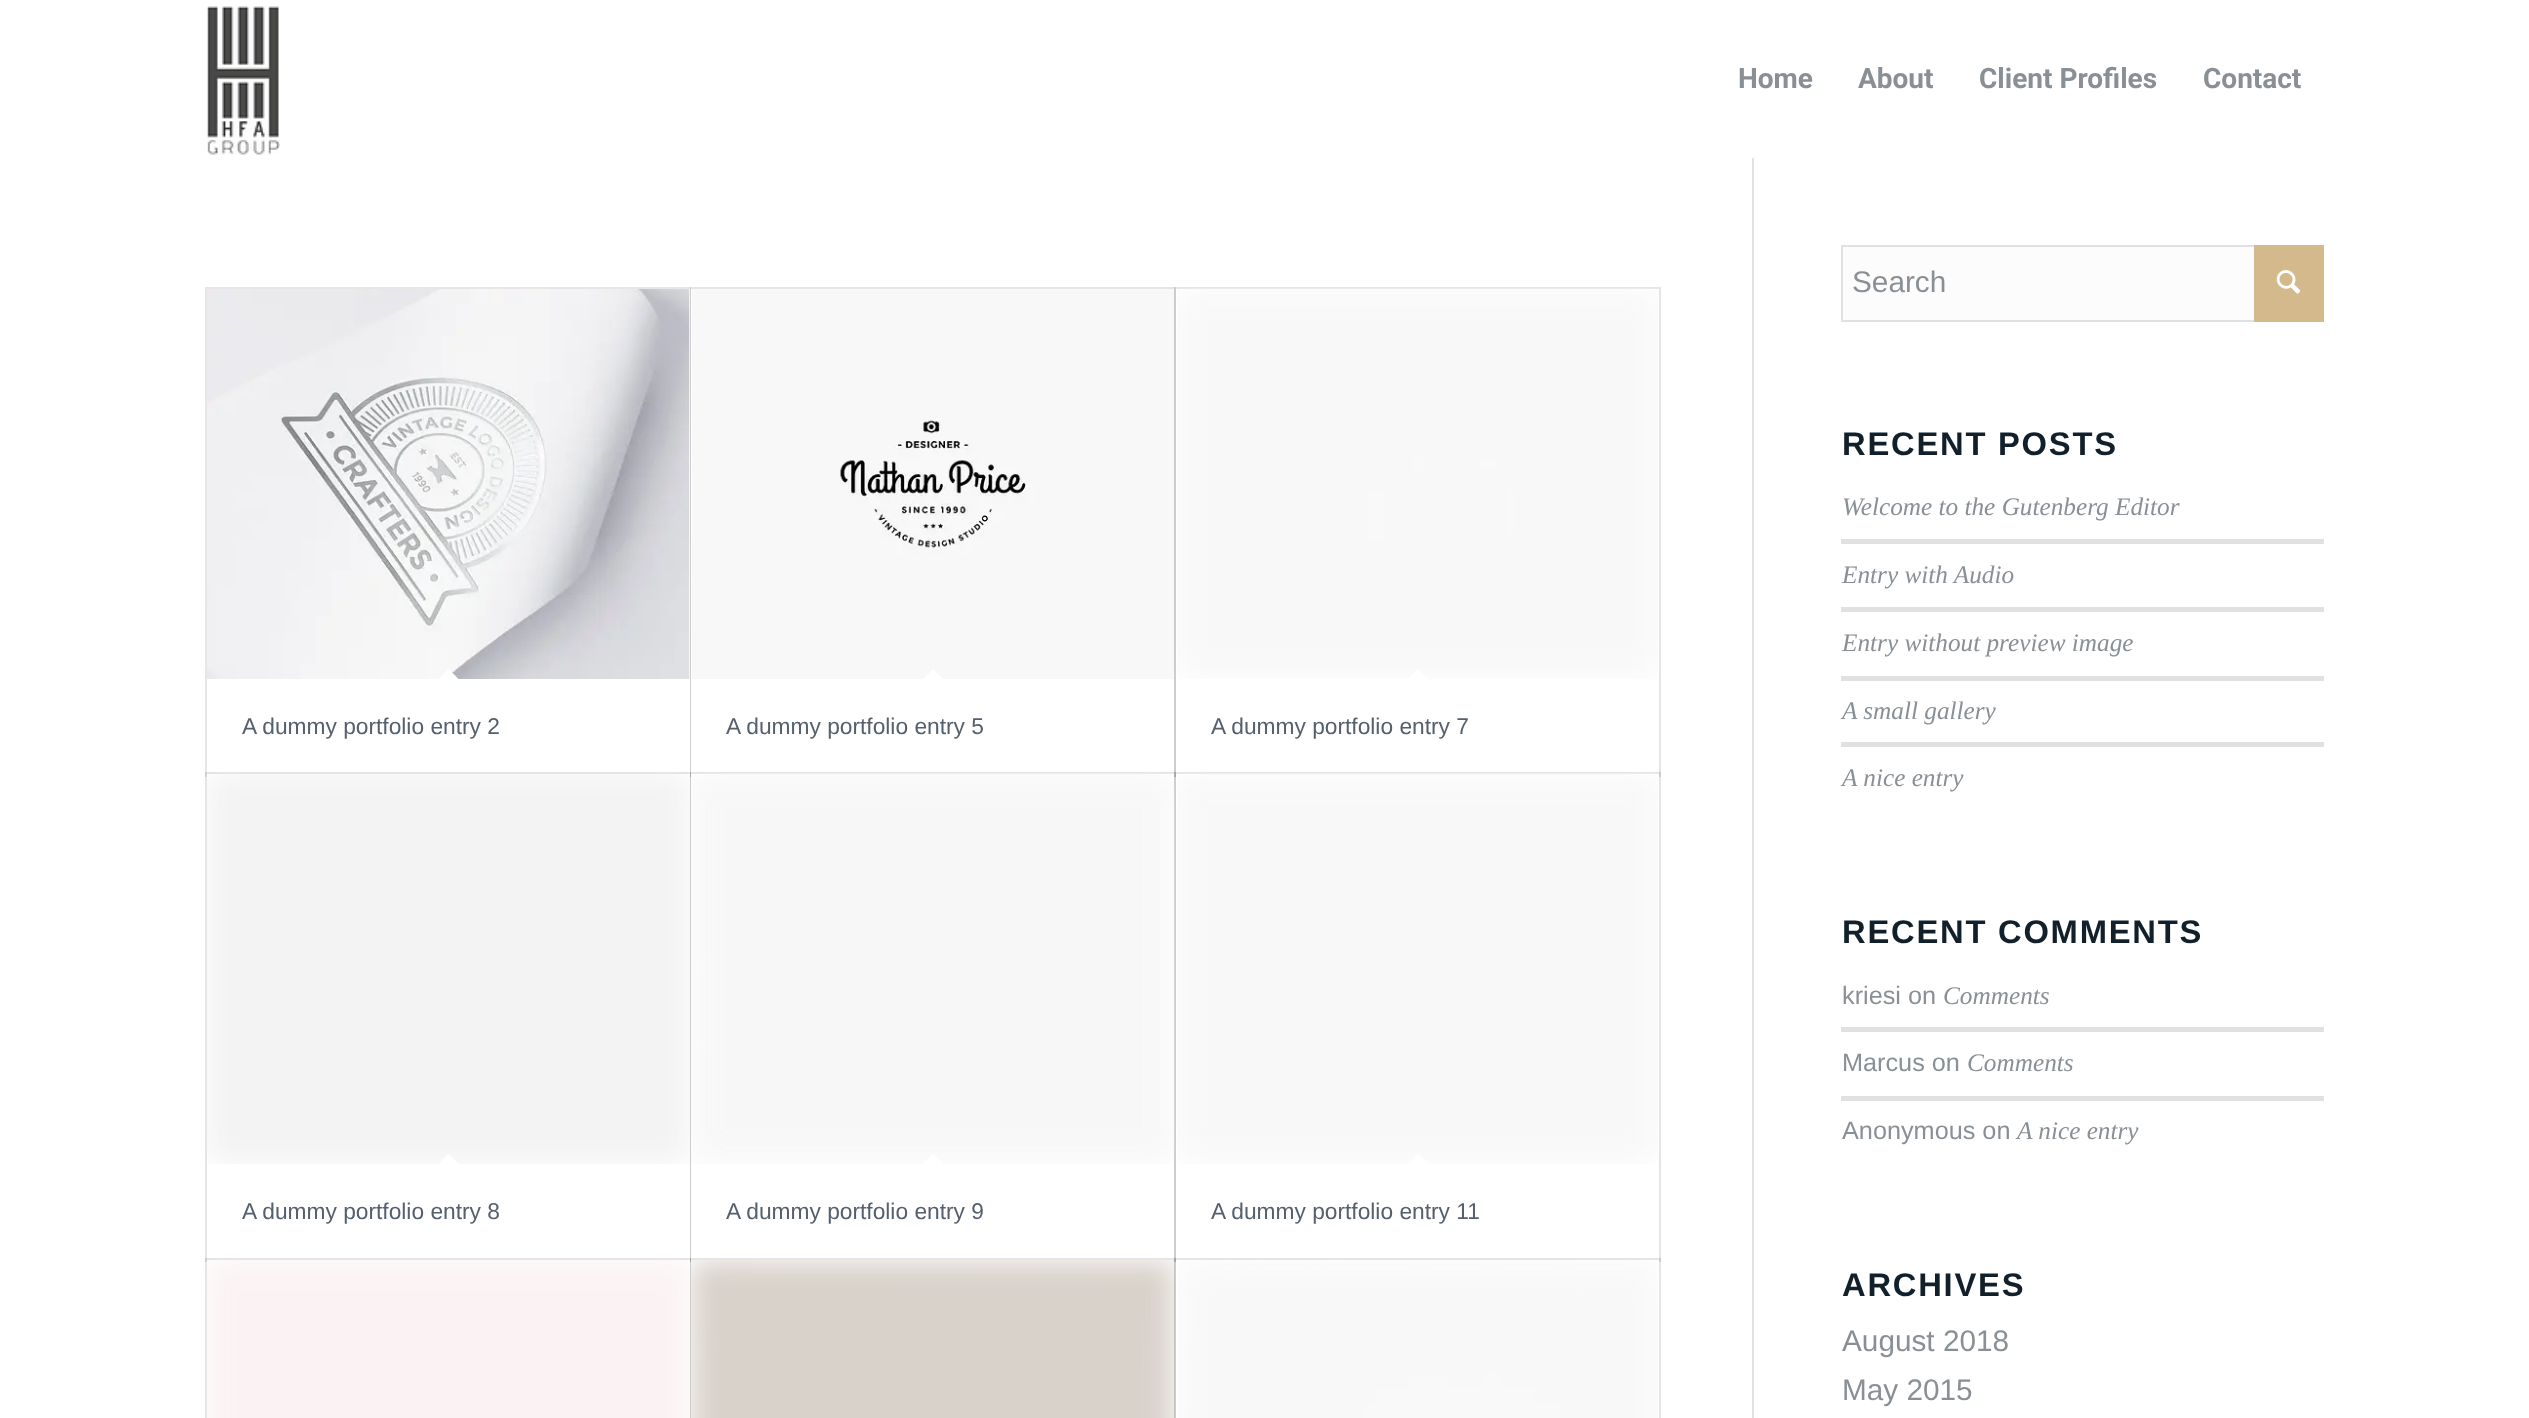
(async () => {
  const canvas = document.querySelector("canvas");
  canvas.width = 2529;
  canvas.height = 1418;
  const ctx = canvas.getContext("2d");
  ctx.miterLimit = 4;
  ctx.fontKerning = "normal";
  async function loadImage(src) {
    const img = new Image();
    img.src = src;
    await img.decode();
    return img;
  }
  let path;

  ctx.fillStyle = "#ffffff";
  ctx.fillRect(0, 0, 2529, 1418);
  ctx.drawImage(await loadImage("img/1.png"), 206, 6, 74, 149);
  ctx.fillStyle = "#e1e1e1";
  ctx.fillRect(1752, 158, 2, 1260);
  ctx.strokeStyle = "#e6e6e6";
  ctx.lineWidth = 2;
  ctx.strokeRect(206, 288, 484, 488);
  ctx.fillStyle = "#ffffff";
  ctx.fillRect(689, 289, 1, 485);
  ctx.drawImage(await loadImage("img/2.png"), 207, 289, 483, 390);
  path = new Path2D("M448.5 669L461 681.5L448.5 694L436 681.5Z");
  ctx.fill(path);
  ctx.strokeStyle = "rgba(0, 0, 0, 0.1)";
  ctx.strokeRect(691, 288, 484, 488);
  ctx.fillRect(691, 289, 1, 485);
  ctx.drawImage(await loadImage("img/3.png"), 692, 289, 482, 390);
  path = new Path2D("M933 669L945.5 681.5L933 694L921 681.5Z");
  ctx.fill(path);
  ctx.strokeRect(1175, 288, 485, 488);
  ctx.drawImage(await loadImage("img/4.png"), 1177, 288, 481, 391);
  path = new Path2D("M1418 669L1430.5 681.5L1418 694L1405.5 681.5Z");
  ctx.fill(path);
  ctx.strokeRect(206, 773, 484, 488);
  ctx.fillRect(207, 774, 483, 486);
  ctx.drawImage(await loadImage("img/5.png"), 206, 774, 484, 390);
  path = new Path2D("M448.5 1154L461 1166L448.5 1178.5L436 1166Z");
  ctx.fill(path);
  ctx.strokeRect(691, 773, 484, 488);
  ctx.fillRect(691, 774, 483, 486);
  ctx.drawImage(await loadImage("img/6.png"), 691, 773, 484, 391);
  path = new Path2D("M933 1154L945.5 1166L933 1178.5L921 1166Z");
  ctx.fill(path);
  ctx.strokeRect(1175, 773, 485, 488);
  ctx.fillRect(1176, 775, 483, 2);
  ctx.drawImage(await loadImage("img/7.png"), 1177, 773, 481, 391);
  path = new Path2D("M1418 1154L1430.5 1166L1418 1178.5L1405.5 1166Z");
  ctx.fill(path);
  ctx.strokeRect(206, 1259, 484, 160);
  ctx.fillRect(207, 1260, 483, 158);
  ctx.drawImage(await loadImage("img/8.png"), 206, 1260, 484, 158);
  ctx.strokeRect(691, 1259, 484, 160);
  ctx.fillRect(691, 1260, 483, 158);
  ctx.drawImage(await loadImage("img/9.png"), 691, 1260, 484, 158);
  ctx.strokeRect(1175, 1259, 485, 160);
  ctx.fillRect(1176, 1260, 483, 2);
  ctx.drawImage(await loadImage("img/10.png"), 1178, 1260, 480, 158);
  ctx.fillStyle = "#fcfcfc";
  ctx.fillRect(1843, 247, 411, 73);
  ctx.strokeStyle = "#e1e1e1";
  ctx.strokeRect(1842, 246, 481, 75);
  ctx.fillStyle = "#d4b98c";
  ctx.fillRect(2254, 245, 70, 77);
  ctx.drawImage(await loadImage("img/11.png"), 2276, 270, 25, 24);
  for (const [x, y, w, h, color] of [
    [1841, 539, 483, 5, "#e1e1e1"],
    [1841, 607, 483, 5, "#e1e1e1"],
    [1841, 676, 483, 5, "#e1e1e1"],
    [1841, 742, 483, 5, "#e1e1e1"],
    [1841, 1027, 483, 5, "#e1e1e1"],
    [1841, 1096, 483, 5, "#e1e1e1"],
  ]) {
    ctx.fillStyle = color;
    ctx.fillRect(x, y, w, h);
  }
  ctx.font = "bold 28px Roboto";
  ctx.fillStyle = "#889095";
  for (const [text, x, y] of [
    ["Home", 1738, 88],
    ["About", 1858, 88],
    ["Client Profiles", 1979, 88],
    ["Contact", 2203, 88],
  ]) {
    ctx.fillText(text, x, y);
  }
  ctx.font = "22.75px Liberation Sans";
  ctx.fillStyle = "#55606e";
  for (const [text, x, y] of [
    ["A dummy portfolio entry 2", 242, 734],
    ["A dummy portfolio entry 5", 726, 734],
    ["A dummy portfolio entry 7", 1211, 734],
    ["A dummy portfolio entry 8", 242, 1219],
    ["A dummy portfolio entry 9", 726, 1219],
    ["A dummy portfolio entry 11", 1211, 1219],
  ]) {
    ctx.fillText(text, x, y);
  }
  ctx.font = "29.75px Liberation Sans";
  ctx.fillStyle = "#889095";
  ctx.fillText("Search", 1852, 292);
  ctx.letterSpacing = "1.75px";
  ctx.font = "bold 32.75px Liberation Sans";
  ctx.fillStyle = "#11202a";
  ctx.fillText("RECENT POSTS", 1842, 455);
  ctx.letterSpacing = "0px";
  ctx.font = "italic 25.25px Liberation Serif";
  ctx.fillStyle = "#889095";
  for (const [text, x, y] of [
    ["Welcome to the Gutenberg Editor", 1842, 515],
    ["Entry with Audio", 1842, 583],
    ["Entry without preview image", 1842, 651],
    ["A small gallery", 1842, 719],
    ["A nice entry", 1842, 786],
  ]) {
    ctx.fillText(text, x, y);
  }
  ctx.letterSpacing = "1.75px";
  ctx.font = "bold 32.75px Liberation Sans";
  ctx.fillStyle = "#11202a";
  ctx.fillText("RECENT COMMENTS", 1842, 943);
  ctx.letterSpacing = "0px";
  ctx.font = "25.25px Liberation Sans";
  ctx.fillStyle = "#889095";
  ctx.fillText("kriesi on", 1842, 1004);
  ctx.font = "italic 25.25px Liberation Serif";
  ctx.fillText("Comments", 1943, 1004);
  ctx.font = "25.25px Liberation Sans";
  ctx.fillText("Marcus on", 1842, 1071);
  ctx.font = "italic 25.25px Liberation Serif";
  ctx.fillText("Comments", 1967, 1071);
  ctx.font = "25.25px Liberation Sans";
  ctx.fillText("Anonymous on", 1842, 1139);
  ctx.font = "italic 25.25px Liberation Serif";
  ctx.fillText("A nice entry", 2017, 1139);
  ctx.letterSpacing = "1.75px";
  ctx.font = "bold 32.75px Liberation Sans";
  ctx.fillStyle = "#11202a";
  ctx.fillText("ARCHIVES", 1842, 1296);
  ctx.letterSpacing = "0px";
  ctx.font = "29.75px Liberation Sans";
  ctx.fillStyle = "#889095";
  ctx.fillText("August 2018", 1842, 1351);
  ctx.fillText("May 2015", 1842, 1400);
})();
